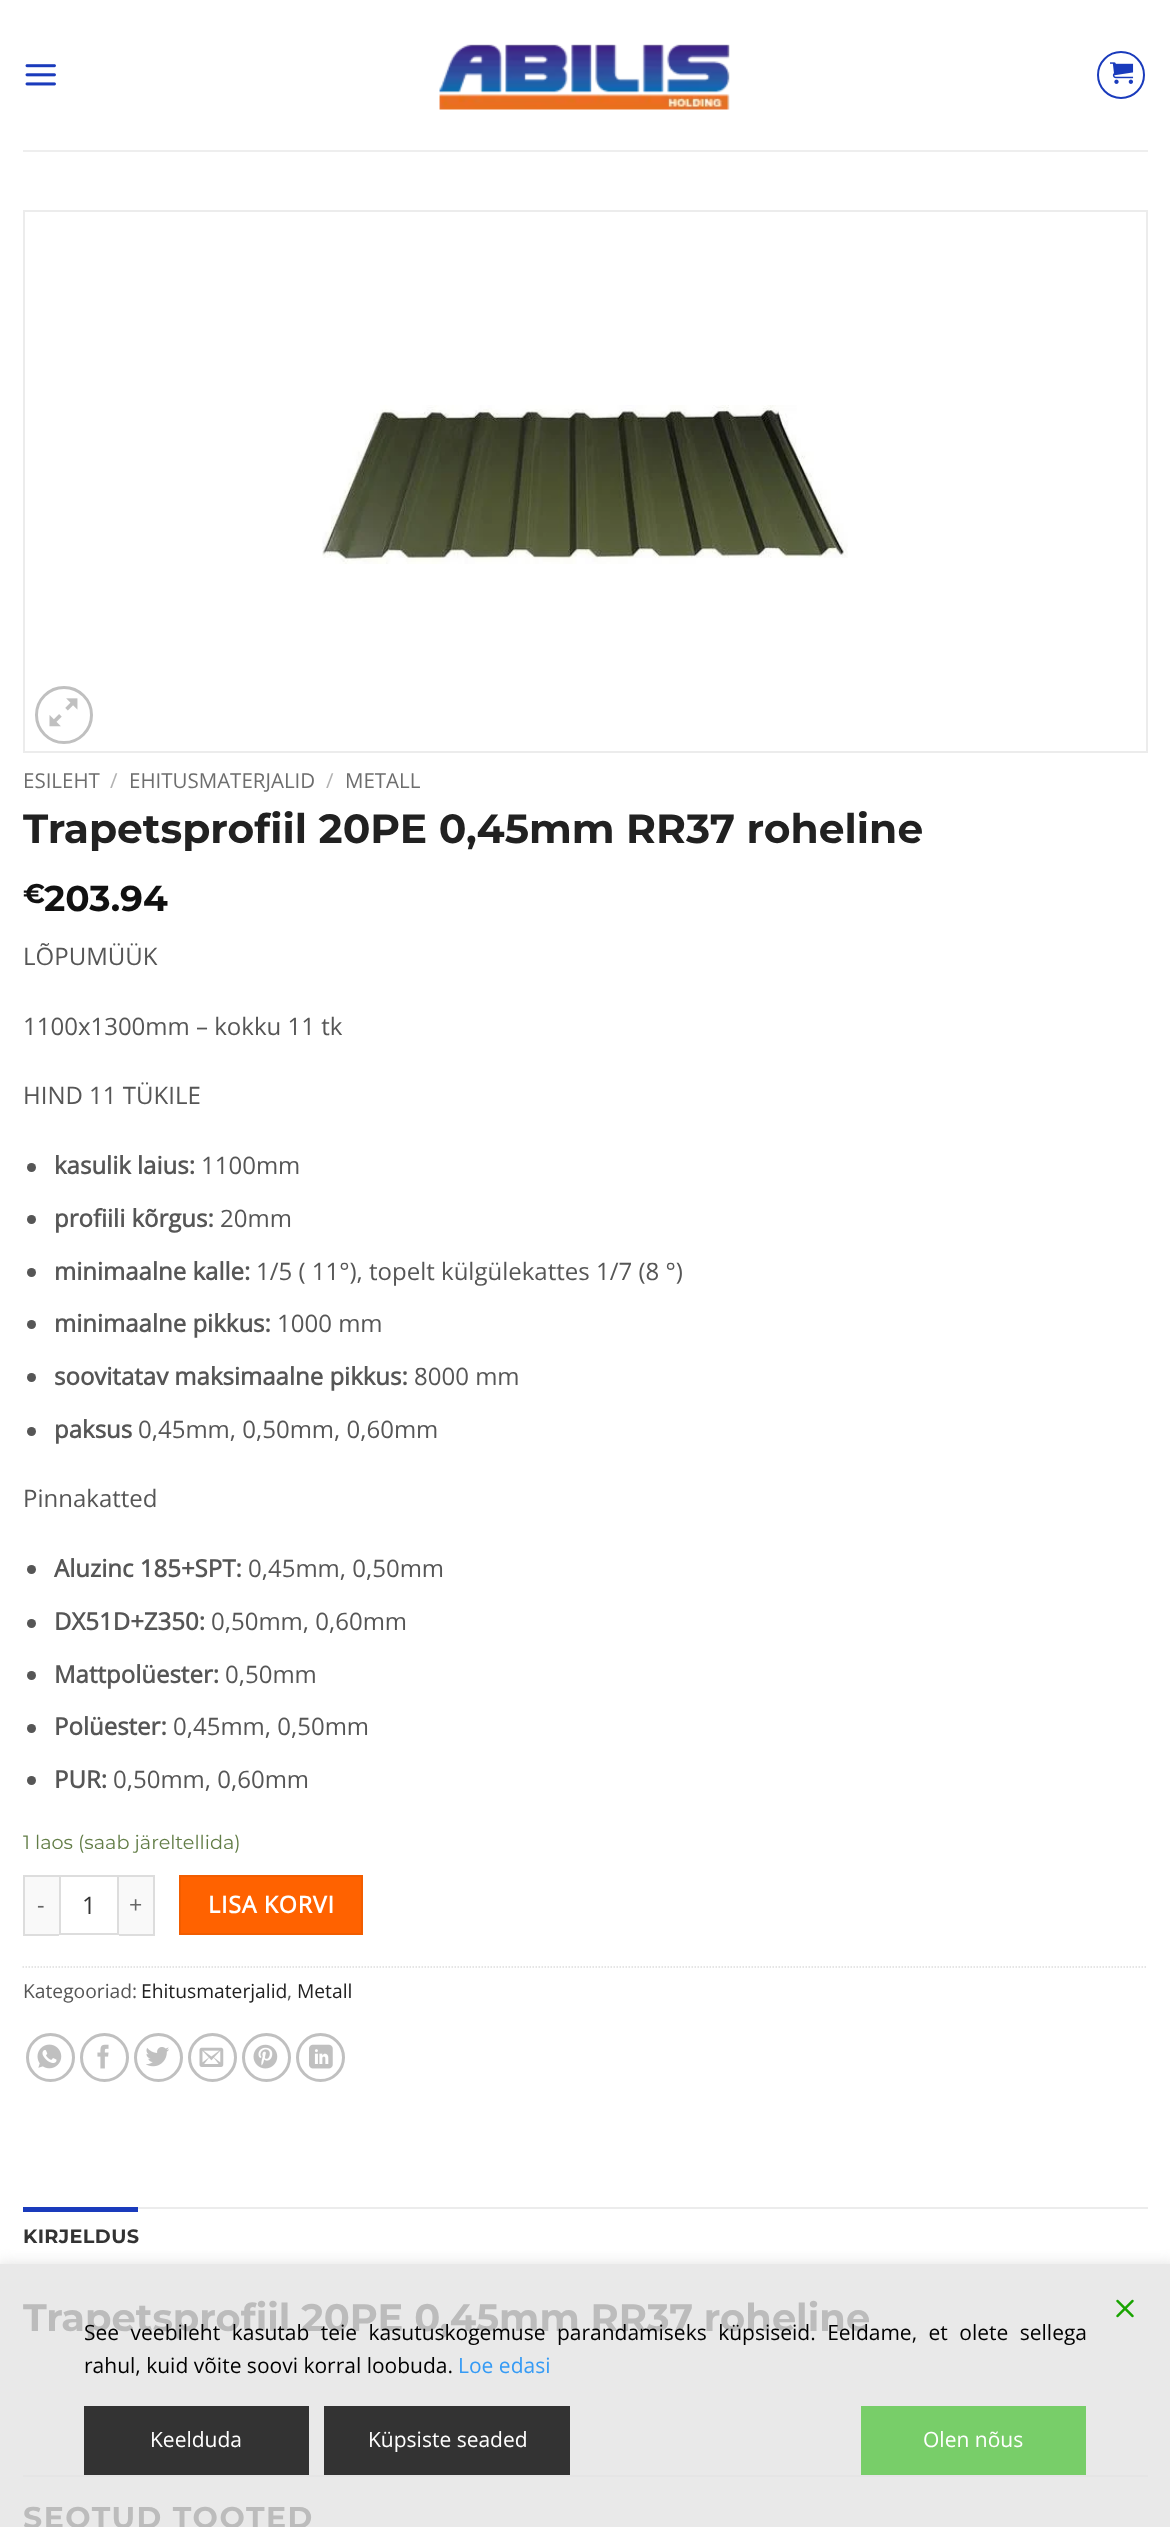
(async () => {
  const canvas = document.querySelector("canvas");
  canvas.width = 1170;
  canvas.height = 2527;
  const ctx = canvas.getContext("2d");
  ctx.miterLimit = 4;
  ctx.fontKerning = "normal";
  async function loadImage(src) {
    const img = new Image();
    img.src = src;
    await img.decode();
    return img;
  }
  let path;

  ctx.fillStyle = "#ffffff";
  ctx.fillRect(0, 0, 1170, 2527);
  ctx.fillStyle = "#e9e9e9";
  ctx.fillRect(0, 2264, 1170, 263);
  ctx.drawImage(await loadImage("img/1.png"), 25, 64, 31, 22);
  ctx.drawImage(await loadImage("img/2.png"), 439, 44, 291, 66);
  ctx.beginPath();
  ctx.arc(1121, 75, 23, 0, Math.PI * 2);
  ctx.strokeStyle = "#1a3bbc";
  ctx.lineWidth = 2;
  ctx.stroke();
  ctx.drawImage(await loadImage("img/3.png"), 1110, 62, 24, 22);
  ctx.fillStyle = "#eeeeee";
  ctx.fillRect(23, 150, 1125, 2);
  ctx.strokeStyle = "#ececec";
  ctx.strokeRect(24, 211, 1123, 541);
  ctx.drawImage(await loadImage("img/4.png"), 322, 405, 526, 159);
  ctx.beginPath();
  ctx.arc(64, 715, 27.5, 0, Math.PI * 2);
  ctx.strokeStyle = "#c0c0c0";
  ctx.lineWidth = 3;
  ctx.stroke();
  ctx.drawImage(await loadImage("img/5.png"), 49, 698, 29, 29);
  ctx.fillStyle = "#565656";
  ctx.beginPath();
  ctx.arc(31.5, 1167.5, 4.5, 0, Math.PI * 2);
  ctx.fill();
  ctx.beginPath();
  ctx.arc(31.5, 1219.5, 4.5, 0, Math.PI * 2);
  ctx.fill();
  ctx.beginPath();
  ctx.arc(31.5, 1272.5, 4.5, 0, Math.PI * 2);
  ctx.fill();
  ctx.beginPath();
  ctx.arc(31.5, 1324.5, 4.5, 0, Math.PI * 2);
  ctx.fill();
  ctx.beginPath();
  ctx.arc(31.5, 1377.5, 4.5, 0, Math.PI * 2);
  ctx.fill();
  ctx.beginPath();
  ctx.arc(31.5, 1431.5, 4.5, 0, Math.PI * 2);
  ctx.fill();
  ctx.beginPath();
  ctx.arc(31.5, 1569.5, 4.5, 0, Math.PI * 2);
  ctx.fill();
  ctx.beginPath();
  ctx.arc(31.5, 1623.5, 4.5, 0, Math.PI * 2);
  ctx.fill();
  ctx.beginPath();
  ctx.arc(31.5, 1675.5, 4.5, 0, Math.PI * 2);
  ctx.fill();
  ctx.beginPath();
  ctx.arc(31.5, 1728.5, 4.5, 0, Math.PI * 2);
  ctx.fill();
  ctx.beginPath();
  ctx.arc(31.5, 1780.5, 4.5, 0, Math.PI * 2);
  ctx.fill();
  for (const [x, y, w, h, color] of [
    [25, 1877, 34, 57, "#f9f9f9"],
    [23, 1875, 36, 2, "#dddddd"],
    [23, 1934, 36, 2, "#dddddd"],
    [23, 1875, 2, 60, "#dddddd"],
  ]) {
    ctx.fillStyle = color;
    ctx.fillRect(x, y, w, h);
  }
  ctx.strokeStyle = "#dddddd";
  ctx.lineWidth = 2;
  ctx.strokeRect(60, 1876, 58, 58);
  for (const [x, y, w, h, color] of [
    [119, 1877, 34, 57, "#f9f9f9"],
    [119, 1875, 36, 2, "#dddddd"],
    [153, 1875, 2, 60, "#dddddd"],
    [119, 1934, 36, 2, "#dddddd"],
  ]) {
    ctx.fillStyle = color;
    ctx.fillRect(x, y, w, h);
  }
  ctx.fillStyle = "#ff6200";
  ctx.beginPath();
  ctx.rect(180, 1876, 182, 58);
  ctx.fill();
  ctx.strokeStyle = "#f25d00";
  ctx.stroke();
  path = new Path2D("M22.5 1967H1147.5");
  ctx.strokeStyle = "#dddddd";
  ctx.lineWidth = 1.5;
  ctx.setLineDash([1.5, 1.5]);
  ctx.stroke(path);
  ctx.beginPath();
  ctx.arc(50.5, 2057.5, 23, 0, Math.PI * 2);
  ctx.strokeStyle = "#c0c0c0";
  ctx.lineWidth = 3;
  ctx.setLineDash([]);
  ctx.stroke();
  ctx.drawImage(await loadImage("img/6.png"), 37, 2044, 25, 25);
  ctx.beginPath();
  ctx.arc(104.5, 2057.5, 23, 0, Math.PI * 2);
  ctx.stroke();
  ctx.drawImage(await loadImage("img/7.png"), 97, 2044, 12, 25);
  ctx.beginPath();
  ctx.arc(158.5, 2057.5, 23, 0, Math.PI * 2);
  ctx.stroke();
  ctx.drawImage(await loadImage("img/8.png"), 146, 2047, 23, 20);
  ctx.beginPath();
  ctx.arc(212.5, 2057.5, 23, 0, Math.PI * 2);
  ctx.stroke();
  ctx.drawImage(await loadImage("img/9.png"), 199, 2047, 25, 20);
  ctx.beginPath();
  ctx.arc(266.5, 2057.5, 23, 0, Math.PI * 2);
  ctx.stroke();
  ctx.drawImage(await loadImage("img/10.png"), 253, 2044, 25, 25);
  ctx.beginPath();
  ctx.arc(320.5, 2057.5, 23, 0, Math.PI * 2);
  ctx.stroke();
  ctx.drawImage(await loadImage("img/11.png"), 309, 2044, 24, 25);
  for (const [x, y, w, h, color] of [
    [138, 2207, 1010, 2, "#ececec"],
    [23, 2207, 115, 5, "#1a3bbc"],
    [23, 2475, 1125, 2, "#e5e5e5"],
  ]) {
    ctx.fillStyle = color;
    ctx.fillRect(x, y, w, h);
  }
  ctx.save();
  ctx.beginPath();
  ctx.rect(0, 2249, 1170, 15);
  ctx.clip();
  ctx.fillStyle = "#dddddd";
  ctx.filter = "blur(8px)";
  ctx.beginPath();
  ctx.rect(-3, 2265, 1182, 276);
  ctx.fill();
  ctx.filter = "none";
  ctx.restore();
  ctx.drawImage(await loadImage("img/12.png"), 1116, 2299, 18, 19);
  for (const [x, y, w, h, color] of [
    [84, 2406, 225, 69, "#333333"],
    [324, 2406, 246, 69, "#333333"],
    [861, 2406, 225, 69, "#78ce69"],
  ]) {
    ctx.fillStyle = color;
    ctx.fillRect(x, y, w, h);
  }
  ctx.font = "20.5px Open Sans";
  ctx.fillStyle = "#6e6e6e";
  ctx.fillText("ESILEHT", 23, 788);
  ctx.fillStyle = "#b2b2b2";
  ctx.fillText("/", 110, 788);
  ctx.fillStyle = "#6e6e6e";
  ctx.fillText("EHITUSMATERJALID", 129, 788);
  ctx.fillStyle = "#b2b2b2";
  ctx.fillText("/", 326, 788);
  ctx.fillStyle = "#6e6e6e";
  ctx.fillText("METALL", 345, 788);
  ctx.font = "100 40.8px Montserrat";
  ctx.fillStyle = "#212121";
  ctx.fillText("Trapetsprofiil 20PE 0,45mm RR37 roheline", 23, 843);
  ctx.font = "100 27px Montserrat";
  ctx.fillStyle = "#111111";
  ctx.fillText("€", 23, 903);
  ctx.font = "100 36px Montserrat";
  ctx.fillText("203.94", 44, 911);
  ctx.font = "24px Open Sans";
  ctx.fillStyle = "#565656";
  for (const [text, x, y] of [
    ["LÕPUMÜÜK", 23, 965],
    ["1100x1300mm – kokku 11 tk", 23, 1035],
    ["HIND 11 TÜKILE", 23, 1104],
  ]) {
    ctx.fillText(text, x, y);
  }
  ctx.font = "bold 24px Open Sans";
  ctx.fillText("kasulik laius:", 54, 1174);
  ctx.font = "24px Open Sans";
  ctx.fillText("1100mm", 201, 1174);
  ctx.font = "bold 24px Open Sans";
  ctx.fillText("profiili kõrgus:", 54, 1227);
  ctx.font = "24px Open Sans";
  ctx.fillText("20mm", 220, 1227);
  ctx.font = "bold 24px Open Sans";
  ctx.fillText("minimaalne kalle:", 54, 1280);
  ctx.font = "24px Open Sans";
  ctx.fillText("1/5 ( 11°), topelt külgülekattes 1/7 (8 °)", 256, 1280);
  ctx.font = "bold 24px Open Sans";
  ctx.fillText("minimaalne pikkus:", 54, 1332);
  ctx.font = "24px Open Sans";
  ctx.fillText("1000 mm", 277, 1332);
  ctx.font = "bold 24px Open Sans";
  ctx.fillText("soovitatav maksimaalne pikkus:", 54, 1385);
  ctx.font = "24px Open Sans";
  ctx.fillText("8000 mm", 414, 1385);
  ctx.font = "bold 24px Open Sans";
  ctx.fillText("paksus", 54, 1438);
  ctx.font = "24px Open Sans";
  ctx.fillText("0,45mm, 0,50mm, 0,60mm", 138, 1438);
  ctx.fillText("Pinnakatted", 23, 1507);
  ctx.font = "bold 24px Open Sans";
  ctx.fillText("Aluzinc 185+SPT:", 54, 1577);
  ctx.font = "24px Open Sans";
  ctx.fillText("0,45mm, 0,50mm", 248, 1577);
  ctx.font = "bold 24px Open Sans";
  ctx.fillText("DX51D+Z350:", 54, 1630);
  ctx.font = "24px Open Sans";
  ctx.fillText("0,50mm, 0,60mm", 211, 1630);
  ctx.font = "bold 24px Open Sans";
  ctx.fillText("Mattpolüester:", 54, 1683);
  ctx.font = "24px Open Sans";
  ctx.fillText("0,50mm", 225, 1683);
  ctx.font = "bold 24px Open Sans";
  ctx.fillText("Polüester:", 54, 1735);
  ctx.font = "24px Open Sans";
  ctx.fillText("0,45mm, 0,50mm", 173, 1735);
  ctx.font = "bold 24px Open Sans";
  ctx.fillText("PUR:", 54, 1788);
  ctx.font = "24px Open Sans";
  ctx.fillText("0,50mm, 0,60mm", 113, 1788);
  ctx.font = "19.25px Montserrat";
  ctx.fillStyle = "#627d47";
  ctx.fillText("1 laos (saab järeltellida)", 23, 1849);
  ctx.letterSpacing = "0.75px";
  ctx.font = "23.25px Open Sans";
  ctx.fillStyle = "#666666";
  ctx.fillText("-", 37, 1913);
  ctx.letterSpacing = "0px";
  ctx.font = "24px Open Sans";
  ctx.fillStyle = "#333333";
  ctx.fillText("1", 82, 1914);
  ctx.letterSpacing = "0.75px";
  ctx.font = "23.25px Open Sans";
  ctx.fillStyle = "#666666";
  ctx.fillText("+", 129, 1913);
  ctx.font = "bold 23.25px Open Sans";
  ctx.fillStyle = "#ffffff";
  ctx.fillText("LISA KORVI", 208, 1913);
  ctx.letterSpacing = "0px";
  ctx.font = "19.25px Open Sans";
  ctx.fillStyle = "#565656";
  ctx.fillText("Kategooriad:", 23, 1998);
  ctx.fillStyle = "#212121";
  ctx.fillText("Ehitusmaterjalid", 141, 1998);
  ctx.fillStyle = "#565656";
  ctx.fillText(",", 287, 1998);
  ctx.fillStyle = "#212121";
  ctx.fillText("Metall", 297, 1998);
  ctx.letterSpacing = "0.4px";
  ctx.font = "100 19.25px Montserrat";
  ctx.fillStyle = "#333333";
  ctx.fillText("KIRJELDUS", 23, 2243);
  ctx.letterSpacing = "0px";
  ctx.font = "100 38.4px Montserrat";
  ctx.fillStyle = "#bcbcbc";
  ctx.fillText("Trapetsprofiil 20PE 0,45mm RR37 roheline", 23, 2331);
  ctx.letterSpacing = "1.5px";
  ctx.font = "100 30px Montserrat";
  ctx.fillText("SEOTUD TOOTED", 23, 2528);
  ctx.letterSpacing = "0px";
  ctx.wordSpacing = "6px";
  ctx.font = "21px Open Sans";
  ctx.fillStyle = "#000000";
  ctx.fillText("See veebileht kasutab teie kasutuskogemuse parandamiseks küpsiseid. Eeldame, et olete sellega", 84, 2340);
  ctx.wordSpacing = "0px";
  ctx.fillText("rahul, kuid võite soovi korral loobuda.", 84, 2373);
  ctx.fillStyle = "#359bf5";
  ctx.fillText("Loe edasi", 458, 2373);
  ctx.fillStyle = "#ffffff";
  for (const [text, x, y] of [
    ["Keelduda", 150, 2447],
    ["Küpsiste seaded", 368, 2447],
    ["Olen nõus", 923, 2447],
  ]) {
    ctx.fillText(text, x, y);
  }
})();
